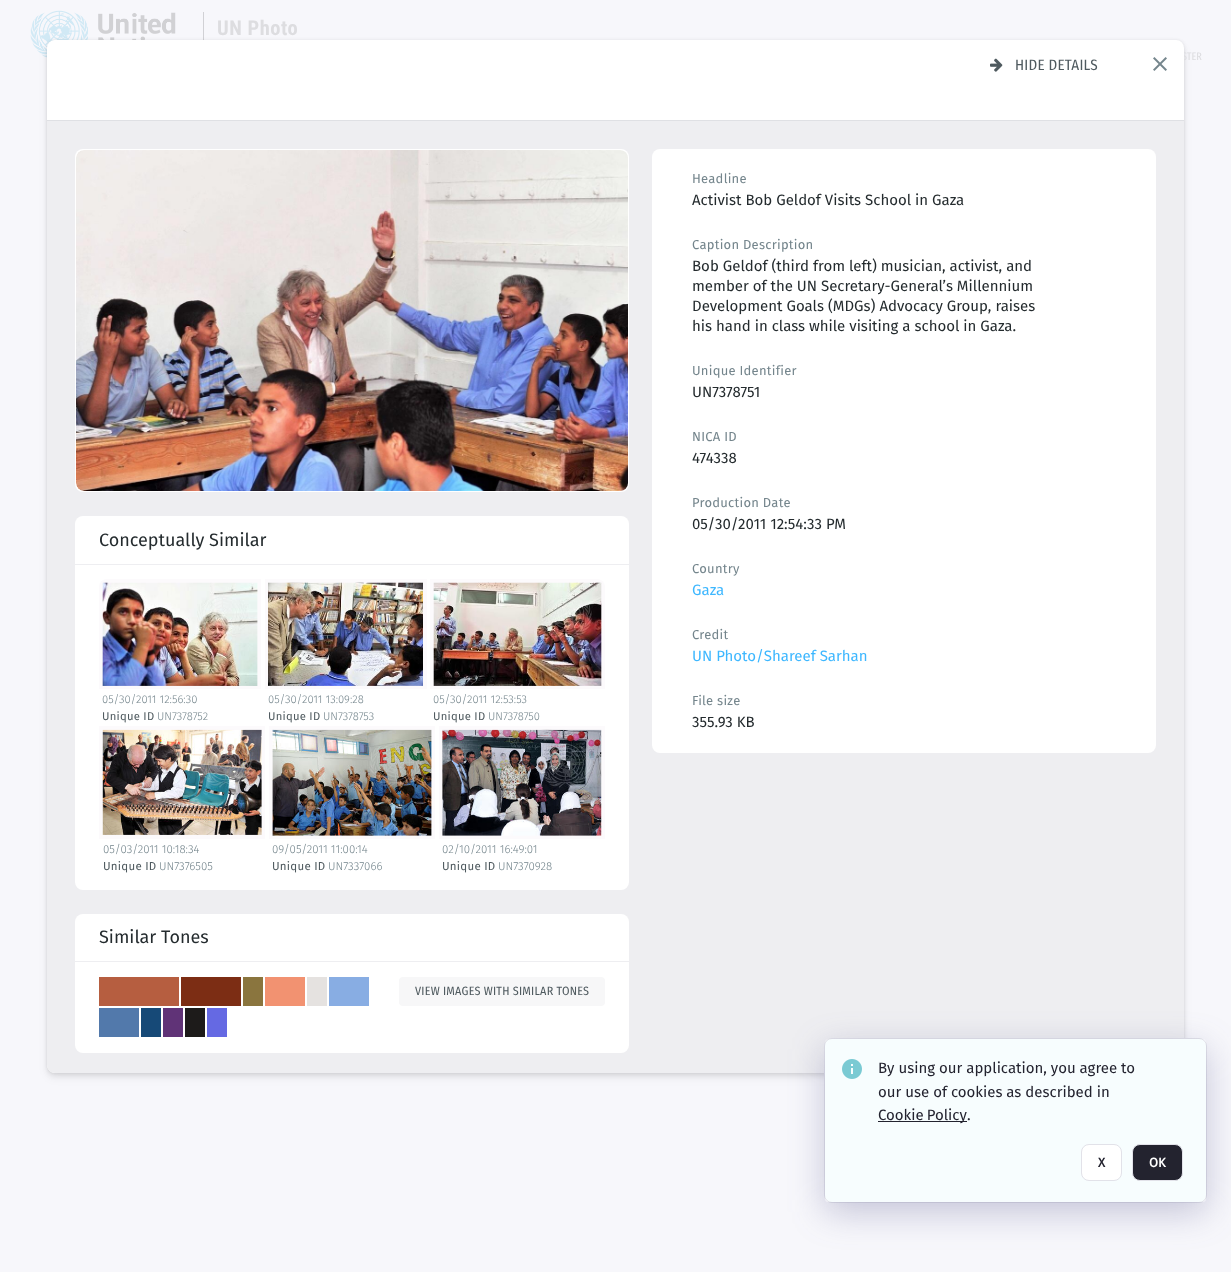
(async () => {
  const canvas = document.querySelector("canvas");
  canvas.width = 1231;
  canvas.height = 1272;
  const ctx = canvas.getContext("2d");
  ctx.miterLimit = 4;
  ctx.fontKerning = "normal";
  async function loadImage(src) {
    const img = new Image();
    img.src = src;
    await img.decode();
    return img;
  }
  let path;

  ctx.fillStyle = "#f7f7fb";
  ctx.fillRect(0, 0, 1231, 1272);
  ctx.drawImage(await loadImage("img/1.png"), 30, 10, 146, 48);
  ctx.fillStyle = "#d1d1d5";
  ctx.fillRect(203, 12, 1, 28);
  ctx.fillStyle = "rgba(0, 0, 0, 0.08)";
  ctx.filter = "blur(1.5px)";
  ctx.beginPath();
  ctx.roundRect(47, 40, 1137, 1033, 8);
  ctx.fill();
  ctx.filter = "none";
  ctx.fillStyle = "rgba(0, 0, 0, 0.06)";
  ctx.filter = "blur(4.5px)";
  ctx.beginPath();
  ctx.roundRect(47, 45, 1137, 1033, 8);
  ctx.fill();
  ctx.filter = "none";
  ctx.filter = "blur(2.5px)";
  ctx.beginPath();
  ctx.roundRect(47, 43, 1137, 1033, 8);
  ctx.fill();
  ctx.filter = "none";
  ctx.letterSpacing = "0.5px";
  ctx.font = "bold 20.5px Roboto Condensed";
  ctx.fillStyle = "#dddde0";
  ctx.fillText("UN Photo", 217, 35);
  ctx.letterSpacing = "0px";
  ctx.font = "11px Fira Sans Extra Condensed";
  ctx.fillText("STER", 1182, 60);
  ctx.fillStyle = "#ffffff";
  ctx.beginPath();
  ctx.roundRect(47, 40, 1137, 1033, 8);
  ctx.fill();
  ctx.drawImage(await loadImage("img/2.png"), 990, 58, 13, 14);
  ctx.letterSpacing = "0.25px";
  ctx.font = "15px Fira Sans Condensed";
  ctx.fillStyle = "#4f5a5f";
  ctx.fillText("HIDE DETAILS", 1015, 70);
  ctx.fillStyle = "#dfe0e4";
  ctx.fillRect(47, 120, 1137, 1);
  ctx.fillStyle = "#eeeef1";
  ctx.beginPath();
  ctx.roundRect(47, 121, 1137, 952, [0, 0, 8, 8]);
  ctx.fill();
  ctx.fillStyle = "#ffffff";
  ctx.beginPath();
  ctx.roundRect(75, 149, 554, 343, 8);
  ctx.fill();
  ctx.drawImage(await loadImage("img/3.png"), 76, 150, 552, 341);
  ctx.beginPath();
  ctx.roundRect(75, 516, 554, 374, 8);
  ctx.fill();
  ctx.letterSpacing = "0px";
  ctx.font = "18px Fira Sans";
  ctx.fillStyle = "#242b2e";
  ctx.fillText("Conceptually Similar", 99, 546);
  ctx.fillStyle = "#fcfafc";
  ctx.beginPath();
  ctx.roundRect(99, 579, 162, 110, [8, 0, 0, 0]);
  ctx.fill();
  ctx.drawImage(await loadImage("img/4.png"), 102, 582, 156, 104);
  ctx.font = "300 11.25px Fira Sans";
  ctx.fillStyle = "#74858c";
  ctx.fillText("05/30/2011 12:56:30", 102, 703);
  ctx.letterSpacing = "0.25px";
  ctx.font = "11.25px Fira Sans";
  ctx.fillStyle = "#4f5a5f";
  ctx.fillText("Unique ID", 102, 720);
  ctx.letterSpacing = "0px";
  ctx.font = "300 11.25px Fira Sans";
  ctx.fillStyle = "#74858c";
  ctx.fillText("UN7378752", 157, 720);
  ctx.fillStyle = "#fcfafc";
  ctx.fillRect(265, 579, 162, 110);
  ctx.drawImage(await loadImage("img/5.png"), 268, 582, 155, 104);
  ctx.fillStyle = "#74858c";
  ctx.fillText("05/30/2011 13:09:28", 268, 703);
  ctx.letterSpacing = "0.25px";
  ctx.font = "11.25px Fira Sans";
  ctx.fillStyle = "#4f5a5f";
  ctx.fillText("Unique ID", 268, 720);
  ctx.letterSpacing = "0px";
  ctx.font = "300 11.25px Fira Sans";
  ctx.fillStyle = "#74858c";
  ctx.fillText("UN7378753", 323, 720);
  ctx.fillStyle = "#fcfafc";
  ctx.beginPath();
  ctx.roundRect(430, 579, 175, 110, [0, 8, 0, 0]);
  ctx.fill();
  ctx.drawImage(await loadImage("img/6.png"), 433, 582, 169, 104);
  ctx.fillStyle = "#74858c";
  ctx.fillText("05/30/2011 12:53:53", 433, 703);
  ctx.letterSpacing = "0.25px";
  ctx.font = "11.25px Fira Sans";
  ctx.fillStyle = "#4f5a5f";
  ctx.fillText("Unique ID", 433, 720);
  ctx.letterSpacing = "0px";
  ctx.font = "300 11.25px Fira Sans";
  ctx.fillStyle = "#74858c";
  ctx.fillText("UN7378750", 488, 720);
  ctx.fillStyle = "#fcfafc";
  ctx.fillRect(99, 726, 166, 113);
  ctx.drawImage(await loadImage("img/7.png"), 102, 729, 160, 106);
  ctx.font = "300 11.5px Fira Sans";
  ctx.fillStyle = "#74858c";
  ctx.fillText("05/03/2011 10:18:34", 103, 853);
  ctx.letterSpacing = "0.25px";
  ctx.font = "11.5px Fira Sans";
  ctx.fillStyle = "#4f5a5f";
  ctx.fillText("Unique ID", 103, 870);
  ctx.letterSpacing = "0px";
  ctx.font = "300 11.5px Fira Sans";
  ctx.fillStyle = "#74858c";
  ctx.fillText("UN7376505", 159, 870);
  ctx.fillStyle = "#fcfafc";
  ctx.fillRect(269, 726, 166, 113);
  ctx.drawImage(await loadImage("img/8.png"), 272, 729, 160, 107);
  ctx.fillStyle = "#74858c";
  ctx.fillText("09/05/2011 11:00:14", 272, 853);
  ctx.letterSpacing = "0.25px";
  ctx.font = "11.5px Fira Sans";
  ctx.fillStyle = "#4f5a5f";
  ctx.fillText("Unique ID", 272, 870);
  ctx.letterSpacing = "0px";
  ctx.font = "300 11.5px Fira Sans";
  ctx.fillStyle = "#74858c";
  ctx.fillText("UN7337066", 328, 870);
  ctx.fillStyle = "#fcfafc";
  ctx.fillRect(439, 726, 166, 113);
  ctx.drawImage(await loadImage("img/9.png"), 442, 729, 160, 107);
  ctx.fillStyle = "#74858c";
  ctx.fillText("02/10/2011 16:49:01", 442, 853);
  ctx.letterSpacing = "0.25px";
  ctx.font = "11.5px Fira Sans";
  ctx.fillStyle = "#4f5a5f";
  ctx.fillText("Unique ID", 442, 870);
  ctx.letterSpacing = "0px";
  ctx.font = "300 11.5px Fira Sans";
  ctx.fillStyle = "#74858c";
  ctx.fillText("UN7370928", 498, 870);
  ctx.fillStyle = "#eeeef1";
  ctx.fillRect(75, 564, 554, 1);
  ctx.fillStyle = "#ffffff";
  ctx.beginPath();
  ctx.roundRect(75, 914, 554, 139, 8);
  ctx.fill();
  ctx.font = "18px Fira Sans";
  ctx.fillStyle = "#242b2e";
  ctx.fillText("Similar Tones", 99, 943);
  for (const [x, y, w, h, color] of [
    [99, 977, 80, 29, "#b65e40"],
    [181, 977, 60, 29, "#7c2d14"],
    [243, 977, 20, 29, "#8a753e"],
    [265, 977, 40, 29, "#f29271"],
    [307, 977, 20, 29, "#e5e2e0"],
    [329, 977, 40, 29, "#88ade3"],
    [99, 1008, 40, 29, "#5279ab"],
    [141, 1008, 20, 29, "#164977"],
    [163, 1008, 20, 29, "#603377"],
    [185, 1008, 20, 29, "#1d1b1a"],
    [207, 1008, 20, 29, "#6569e3"],
  ]) {
    ctx.fillStyle = color;
    ctx.fillRect(x, y, w, h);
  }
  ctx.fillStyle = "#f7f7f8";
  ctx.beginPath();
  ctx.roundRect(399, 977, 206, 29, 4);
  ctx.fill();
  ctx.letterSpacing = "0.25px";
  ctx.font = "12px Fira Sans Condensed";
  ctx.fillStyle = "#4f5a5f";
  ctx.fillText("VIEW IMAGES WITH SIMILAR TONES", 415, 995);
  ctx.fillStyle = "#eeeef1";
  ctx.fillRect(75, 961, 554, 1);
  ctx.fillStyle = "#ffffff";
  ctx.beginPath();
  ctx.roundRect(652, 149, 504, 604, 8);
  ctx.fill();
  ctx.font = "13px Fira Sans";
  ctx.fillStyle = "#74858c";
  ctx.fillText("Headline", 692, 183);
  ctx.letterSpacing = "0px";
  ctx.font = "15px Fira Sans";
  ctx.fillStyle = "#242b2e";
  ctx.fillText("Activist Bob Geldof Visits School in Gaza", 692, 205);
  ctx.letterSpacing = "0.25px";
  ctx.font = "13px Fira Sans";
  ctx.fillStyle = "#74858c";
  ctx.fillText("Caption Description", 692, 249);
  ctx.letterSpacing = "0px";
  ctx.font = "15px Fira Sans";
  ctx.fillStyle = "#242b2e";
  for (const [text, x, y] of [
    ["Bob Geldof (third from left) musician, activist, and", 692, 271],
    ["member of the UN Secretary-General’s Millennium", 692, 291],
    ["Development Goals (MDGs) Advocacy Group, raises", 692, 311],
    ["his hand in class while visiting a school in Gaza.", 692, 331],
  ]) {
    ctx.fillText(text, x, y);
  }
  ctx.letterSpacing = "0.25px";
  ctx.font = "13px Fira Sans";
  ctx.fillStyle = "#74858c";
  ctx.fillText("Unique Identifier", 692, 375);
  ctx.letterSpacing = "0px";
  ctx.font = "15px Fira Sans";
  ctx.fillStyle = "#242b2e";
  ctx.fillText("UN7378751", 692, 397);
  ctx.letterSpacing = "0.25px";
  ctx.font = "13px Fira Sans";
  ctx.fillStyle = "#74858c";
  ctx.fillText("NICA ID", 692, 441);
  ctx.letterSpacing = "0px";
  ctx.font = "15px Fira Sans";
  ctx.fillStyle = "#242b2e";
  ctx.fillText("474338", 692, 463);
  ctx.letterSpacing = "0.25px";
  ctx.font = "13px Fira Sans";
  ctx.fillStyle = "#74858c";
  ctx.fillText("Production Date", 692, 507);
  ctx.letterSpacing = "0px";
  ctx.font = "15px Fira Sans";
  ctx.fillStyle = "#242b2e";
  ctx.fillText("05/30/2011 12:54:33 PM", 692, 529);
  ctx.letterSpacing = "0.25px";
  ctx.font = "13px Fira Sans";
  ctx.fillStyle = "#74858c";
  ctx.fillText("Country", 692, 573);
  ctx.letterSpacing = "0px";
  ctx.font = "15px Fira Sans";
  ctx.fillStyle = "#3db7ff";
  ctx.fillText("Gaza", 692, 595);
  ctx.letterSpacing = "0.25px";
  ctx.font = "13px Fira Sans";
  ctx.fillStyle = "#74858c";
  ctx.fillText("Credit", 692, 639);
  ctx.letterSpacing = "0px";
  ctx.font = "15px Fira Sans";
  ctx.fillStyle = "#3db7ff";
  ctx.fillText("UN Photo/Shareef Sarhan", 692, 661);
  ctx.letterSpacing = "0.25px";
  ctx.font = "13px Fira Sans";
  ctx.fillStyle = "#74858c";
  ctx.fillText("File size", 692, 705);
  ctx.letterSpacing = "0px";
  ctx.font = "15px Fira Sans";
  ctx.fillStyle = "#242b2e";
  ctx.fillText("355.93 KB", 692, 727);
  ctx.drawImage(await loadImage("img/10.png"), 1153, 57, 14, 14);
  ctx.fillStyle = "#f7fdfe";
  ctx.beginPath();
  ctx.roundRect(824.5, 1038.5, 382, 164, 7.5);
  ctx.fill();
  ctx.strokeStyle = "#e2e2e9";
  ctx.stroke();
  ctx.save();
  path = new Path2D("M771 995H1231V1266H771ZM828 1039H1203C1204.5 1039 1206 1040.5 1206 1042V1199C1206 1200.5 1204.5 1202 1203 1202H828C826.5 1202 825 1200.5 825 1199V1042C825 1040.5 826.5 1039 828 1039Z");
  ctx.clip(path, "evenodd");
  ctx.fillStyle = "rgba(77, 77, 135, 0.3)";
  ctx.filter = "blur(17.5px)";
  ctx.beginPath();
  ctx.roundRect(825, 1049, 381, 163, 3);
  ctx.fill();
  ctx.filter = "none";
  ctx.restore();
  ctx.drawImage(await loadImage("img/11.png"), 842, 1059, 20, 20);
  ctx.fillStyle = "#23232f";
  ctx.fillText("By using our application, you agree to", 878, 1073);
  ctx.fillText("our use of cookies as described in", 878, 1097);
  ctx.fillRect(878, 1121, 89, 1);
  ctx.wordSpacing = "-1px";
  ctx.fillText("Cookie Policy", 878, 1120);
  ctx.wordSpacing = "0px";
  ctx.fillText(".", 967, 1120);
  ctx.fillStyle = "#ffffff";
  ctx.beginPath();
  ctx.roundRect(1081.5, 1144.5, 40, 36, 7.5);
  ctx.fill();
  ctx.stroke();
  ctx.font = "bold 13px Fira Sans";
  ctx.fillStyle = "#23232f";
  ctx.fillText("X", 1098, 1167);
  ctx.beginPath();
  ctx.roundRect(1132.5, 1144.5, 50, 36, 7.5);
  ctx.fill();
  ctx.stroke();
  ctx.fillStyle = "#ffffff";
  ctx.fillText("OK", 1149, 1167);
})();
